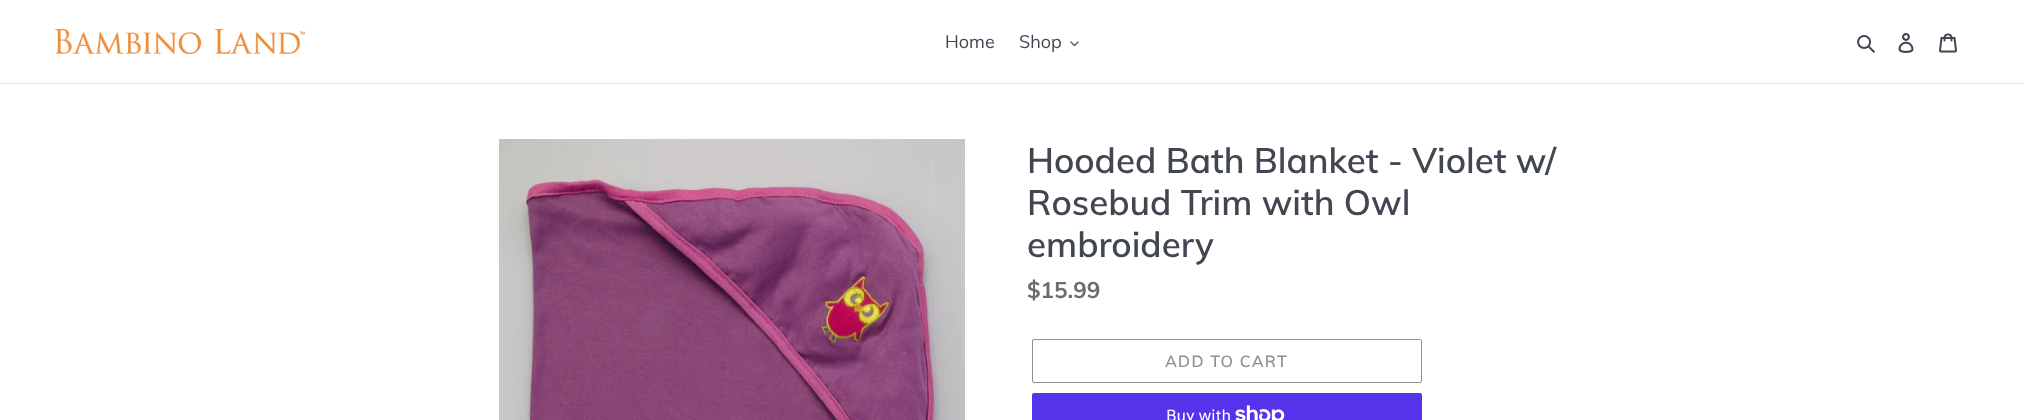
(async () => {
  const canvas = document.querySelector("canvas");
  canvas.width = 2024;
  canvas.height = 420;
  const ctx = canvas.getContext("2d");
  ctx.miterLimit = 4;
  ctx.fontKerning = "normal";
  async function loadImage(src) {
    const img = new Image();
    img.src = src;
    await img.decode();
    return img;
  }

  ctx.fillStyle = "#ffffff";
  ctx.fillRect(0, 0, 2024, 420);
  ctx.fillStyle = "#e4e4e4";
  ctx.fillRect(0, 83, 2024, 1);
  ctx.drawImage(await loadImage("img/1.png"), 55, 29, 250, 25);
  ctx.drawImage(await loadImage("img/2.png"), 1070, 41, 9, 6);
  ctx.drawImage(await loadImage("img/3.png"), 1857, 35, 18, 18);
  ctx.drawImage(await loadImage("img/4.png"), 1898, 33, 16, 20);
  ctx.drawImage(await loadImage("img/5.png"), 1939, 33, 18, 20);
  ctx.drawImage(await loadImage("img/6.png"), 499, 139, 466, 281);
  ctx.beginPath();
  ctx.roundRect(1032.5, 339.5, 389, 43, 1.5);
  ctx.strokeStyle = "#909090";
  ctx.stroke();
  ctx.fillStyle = "#5433eb";
  ctx.beginPath();
  ctx.roundRect(1032, 393, 390, 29, 2);
  ctx.fill();
  ctx.drawImage(await loadImage("img/7.png"), 1235, 405, 50, 15);
  ctx.font = "18px Muli";
  ctx.fillStyle = "#414651";
  ctx.fillText("Home", 945, 48);
  ctx.fillText("Shop", 1019, 48);
  ctx.font = "600 35px Muli";
  for (const [text, x, y] of [
    ["Hooded Bath Blanket - Violet w/", 1027, 173],
    ["Rosebud Trim with Owl", 1027, 215],
    ["embroidery", 1027, 257],
  ]) {
    ctx.fillText(text, x, y);
  }
  ctx.font = "bold 22.5px Muli";
  ctx.fillStyle = "#6d6d6d";
  ctx.fillText("$15.99", 1027, 298);
  ctx.letterSpacing = "1.25px";
  ctx.font = "600 16px Muli";
  ctx.fillStyle = "#909090";
  ctx.fillText("ADD TO CART", 1165, 367);
  ctx.letterSpacing = "0px";
  ctx.font = "16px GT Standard";
  ctx.fillStyle = "#ffffff";
  ctx.fillText("Buy with", 1166, 421);
})();
